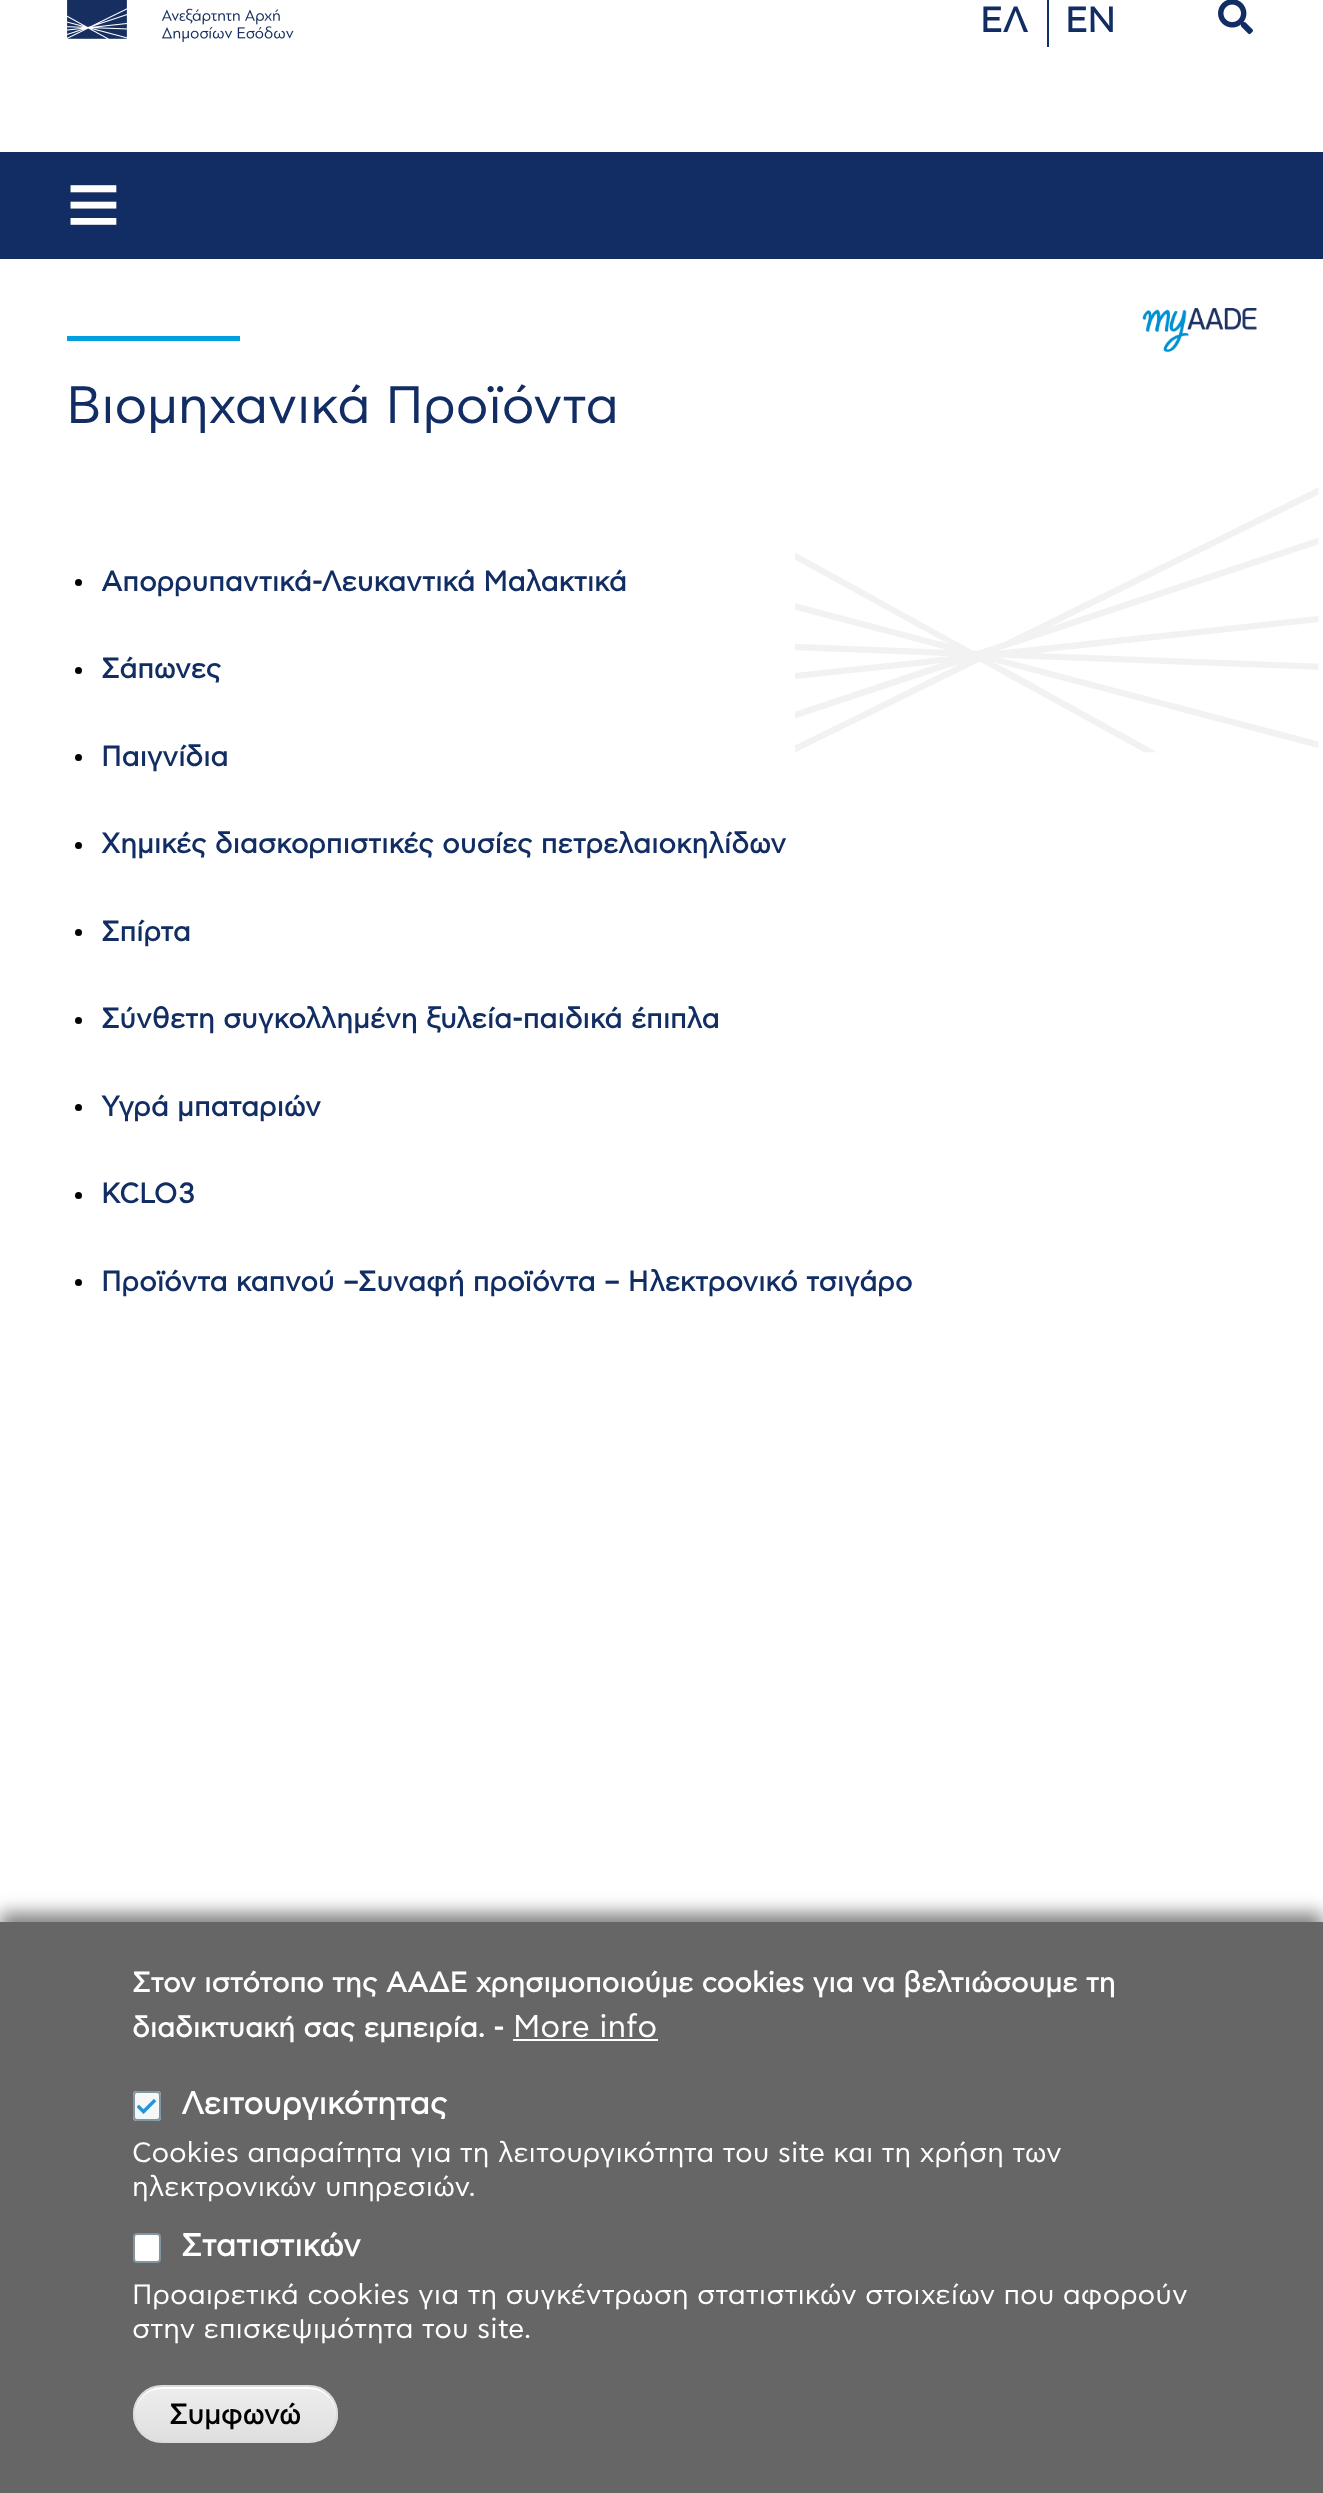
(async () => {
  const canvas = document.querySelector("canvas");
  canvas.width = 1323;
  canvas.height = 2493;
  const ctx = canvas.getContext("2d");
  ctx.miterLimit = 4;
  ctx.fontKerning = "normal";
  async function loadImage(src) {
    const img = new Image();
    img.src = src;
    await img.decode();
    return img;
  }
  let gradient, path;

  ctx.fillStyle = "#ffffff";
  ctx.fillRect(0, 0, 1323, 2493);
  ctx.drawImage(await loadImage("img/1.png"), 67, 0, 227, 42);
  ctx.fillStyle = "#112d63";
  ctx.fillRect(1047, 0, 2, 47);
  ctx.drawImage(await loadImage("img/2.png"), 1218, 0, 35, 35);
  ctx.fillRect(0, 152, 1323, 107);
  ctx.drawImage(await loadImage("img/3.png"), 1142, 308, 115, 44);
  ctx.drawImage(await loadImage("img/4.png"), 795, 487, 524, 266);
  ctx.fillStyle = "#009fdf";
  ctx.fillRect(67, 336, 173, 5);
  ctx.fillStyle = "#000000";
  ctx.beginPath();
  ctx.arc(78.5, 582.5, 3.5, 0, Math.PI * 2);
  ctx.fill();
  ctx.beginPath();
  ctx.arc(78.5, 670.5, 3.5, 0, Math.PI * 2);
  ctx.fill();
  ctx.beginPath();
  ctx.arc(78.5, 757.5, 3.5, 0, Math.PI * 2);
  ctx.fill();
  ctx.beginPath();
  ctx.arc(78.5, 845.5, 3.5, 0, Math.PI * 2);
  ctx.fill();
  ctx.beginPath();
  ctx.arc(78.5, 932.5, 3.5, 0, Math.PI * 2);
  ctx.fill();
  ctx.beginPath();
  ctx.arc(78.5, 1020.5, 3.5, 0, Math.PI * 2);
  ctx.fill();
  ctx.beginPath();
  ctx.arc(78.5, 1107.5, 3.5, 0, Math.PI * 2);
  ctx.fill();
  ctx.beginPath();
  ctx.arc(78.5, 1195.5, 3.5, 0, Math.PI * 2);
  ctx.fill();
  ctx.beginPath();
  ctx.arc(78.5, 1282.5, 3.5, 0, Math.PI * 2);
  ctx.fill();
  ctx.fillStyle = "rgba(0, 0, 0, 0.5)";
  ctx.filter = "blur(9px)";
  ctx.beginPath();
  ctx.rect(0, 1913, 1323, 572);
  ctx.fill();
  ctx.filter = "none";
  ctx.fillStyle = "#666666";
  ctx.fillRect(0, 1922, 1323, 571);
  ctx.fillStyle = "#ffffff";
  ctx.fillRect(513, 2039, 145, 2);
  ctx.fillStyle = "#f6f8f8";
  ctx.beginPath();
  ctx.roundRect(133, 2091, 28, 30, 4);
  ctx.fill();
  ctx.drawImage(await loadImage("img/5.png"), 137, 2099, 20, 15);
  ctx.beginPath();
  ctx.roundRect(134, 2092, 26, 28, 3);
  ctx.strokeStyle = "#8196a2";
  ctx.lineWidth = 2;
  ctx.stroke();
  ctx.fillStyle = "#ffffff";
  ctx.beginPath();
  ctx.roundRect(134, 2234, 26, 28, 3);
  ctx.fill();
  ctx.stroke();
  ctx.save();
  ctx.beginPath();
  ctx.roundRect(133, 2385, 205, 58, 29);
  ctx.clip();
  gradient = ctx.createLinearGradient(235, 2387, 235, 2441);
  gradient.addColorStop(0.05, "#ededed");
  gradient.addColorStop(1, "#dfdfdf");
  ctx.fillStyle = gradient;
  ctx.fillRect(133, 2387, 205, 54);
  ctx.restore();
  path = new Path2D("M162 2389H309C324 2389 335 2400 336 2415V2414C336 2399 324 2387 309 2387H162C147 2387 135 2399 135 2414V2415C136 2400 147 2389 162 2389Z");
  ctx.fill(path);
  ctx.beginPath();
  ctx.roundRect(134, 2386, 203, 56, 28);
  ctx.strokeStyle = "#dcdcdc";
  ctx.stroke();
  ctx.font = "bold 35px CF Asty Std";
  ctx.fillStyle = "#112d63";
  ctx.fillText("ΕΛ", 980, 32);
  ctx.fillText("EN", 1065, 32);
  ctx.font = "94px Liberation Sans";
  ctx.fillStyle = "#ffffff";
  ctx.fillText("≡", 66, 236);
  ctx.letterSpacing = "-0.5px";
  ctx.font = "52.5px CF Asty Std";
  ctx.fillStyle = "#112d63";
  ctx.fillText("Βιομηχανικά Προϊόντα", 66, 423);
  ctx.letterSpacing = "0px";
  ctx.font = "bold 28px CF Asty Std";
  for (const [text, x, y] of [
    ["Απορρυπαντικά-Λευκαντικά Μαλακτικά", 101, 591],
    ["Σάπωνες", 101, 678],
    ["Παιγνίδια", 101, 766],
    ["Xημικές διασκορπιστικές ουσίες πετρελαιοκηλίδων", 101, 853],
    ["Σπίρτα", 101, 941],
    ["Σύνθετη συγκολλημένη ξυλεία-παιδικά έπιπλα", 101, 1028],
    ["Υγρά μπαταριών", 101, 1116],
    ["KCLO3", 101, 1203],
    ["Προϊόντα καπνού –Συναφή προϊόντα – Ηλεκτρονικό τσιγάρο", 101, 1291],
  ]) {
    ctx.fillText(text, x, y);
  }
  ctx.fillStyle = "#ffffff";
  ctx.fillText("Στον ιστότοπο της ΑΑΔΕ χρησιμοποιούμε cookies για να βελτιώσουμε τη", 132, 1992);
  ctx.fillText("διαδικτυακή σας εμπειρία. -", 132, 2037);
  ctx.font = "31.5px CF Asty Std";
  ctx.fillText("More info", 513, 2037);
  ctx.font = "bold 31.5px CF Asty Std";
  ctx.fillText("Λειτουργικότητας", 181, 2114);
  ctx.font = "28px CF Asty Std";
  ctx.fillText("Cookies απαραίτητα για τη λειτουργικότητα του site και τη χρήση των", 132, 2162);
  ctx.fillText("ηλεκτρονικών υπηρεσιών.", 132, 2196);
  ctx.font = "bold 31.5px CF Asty Std";
  ctx.fillText("Στατιστικών", 181, 2256);
  ctx.font = "28px CF Asty Std";
  ctx.fillText("Προαιρετικά cookies για τη συγκέντρωση στατιστικών στοιχείων που αφορούν", 132, 2304);
  ctx.fillText("στην επισκεψιμότητα του site.", 132, 2338);
  ctx.font = "bold 28px CF Asty Std";
  ctx.fillStyle = "#000000";
  ctx.fillText("Συμφωνώ", 169, 2424);
})();
